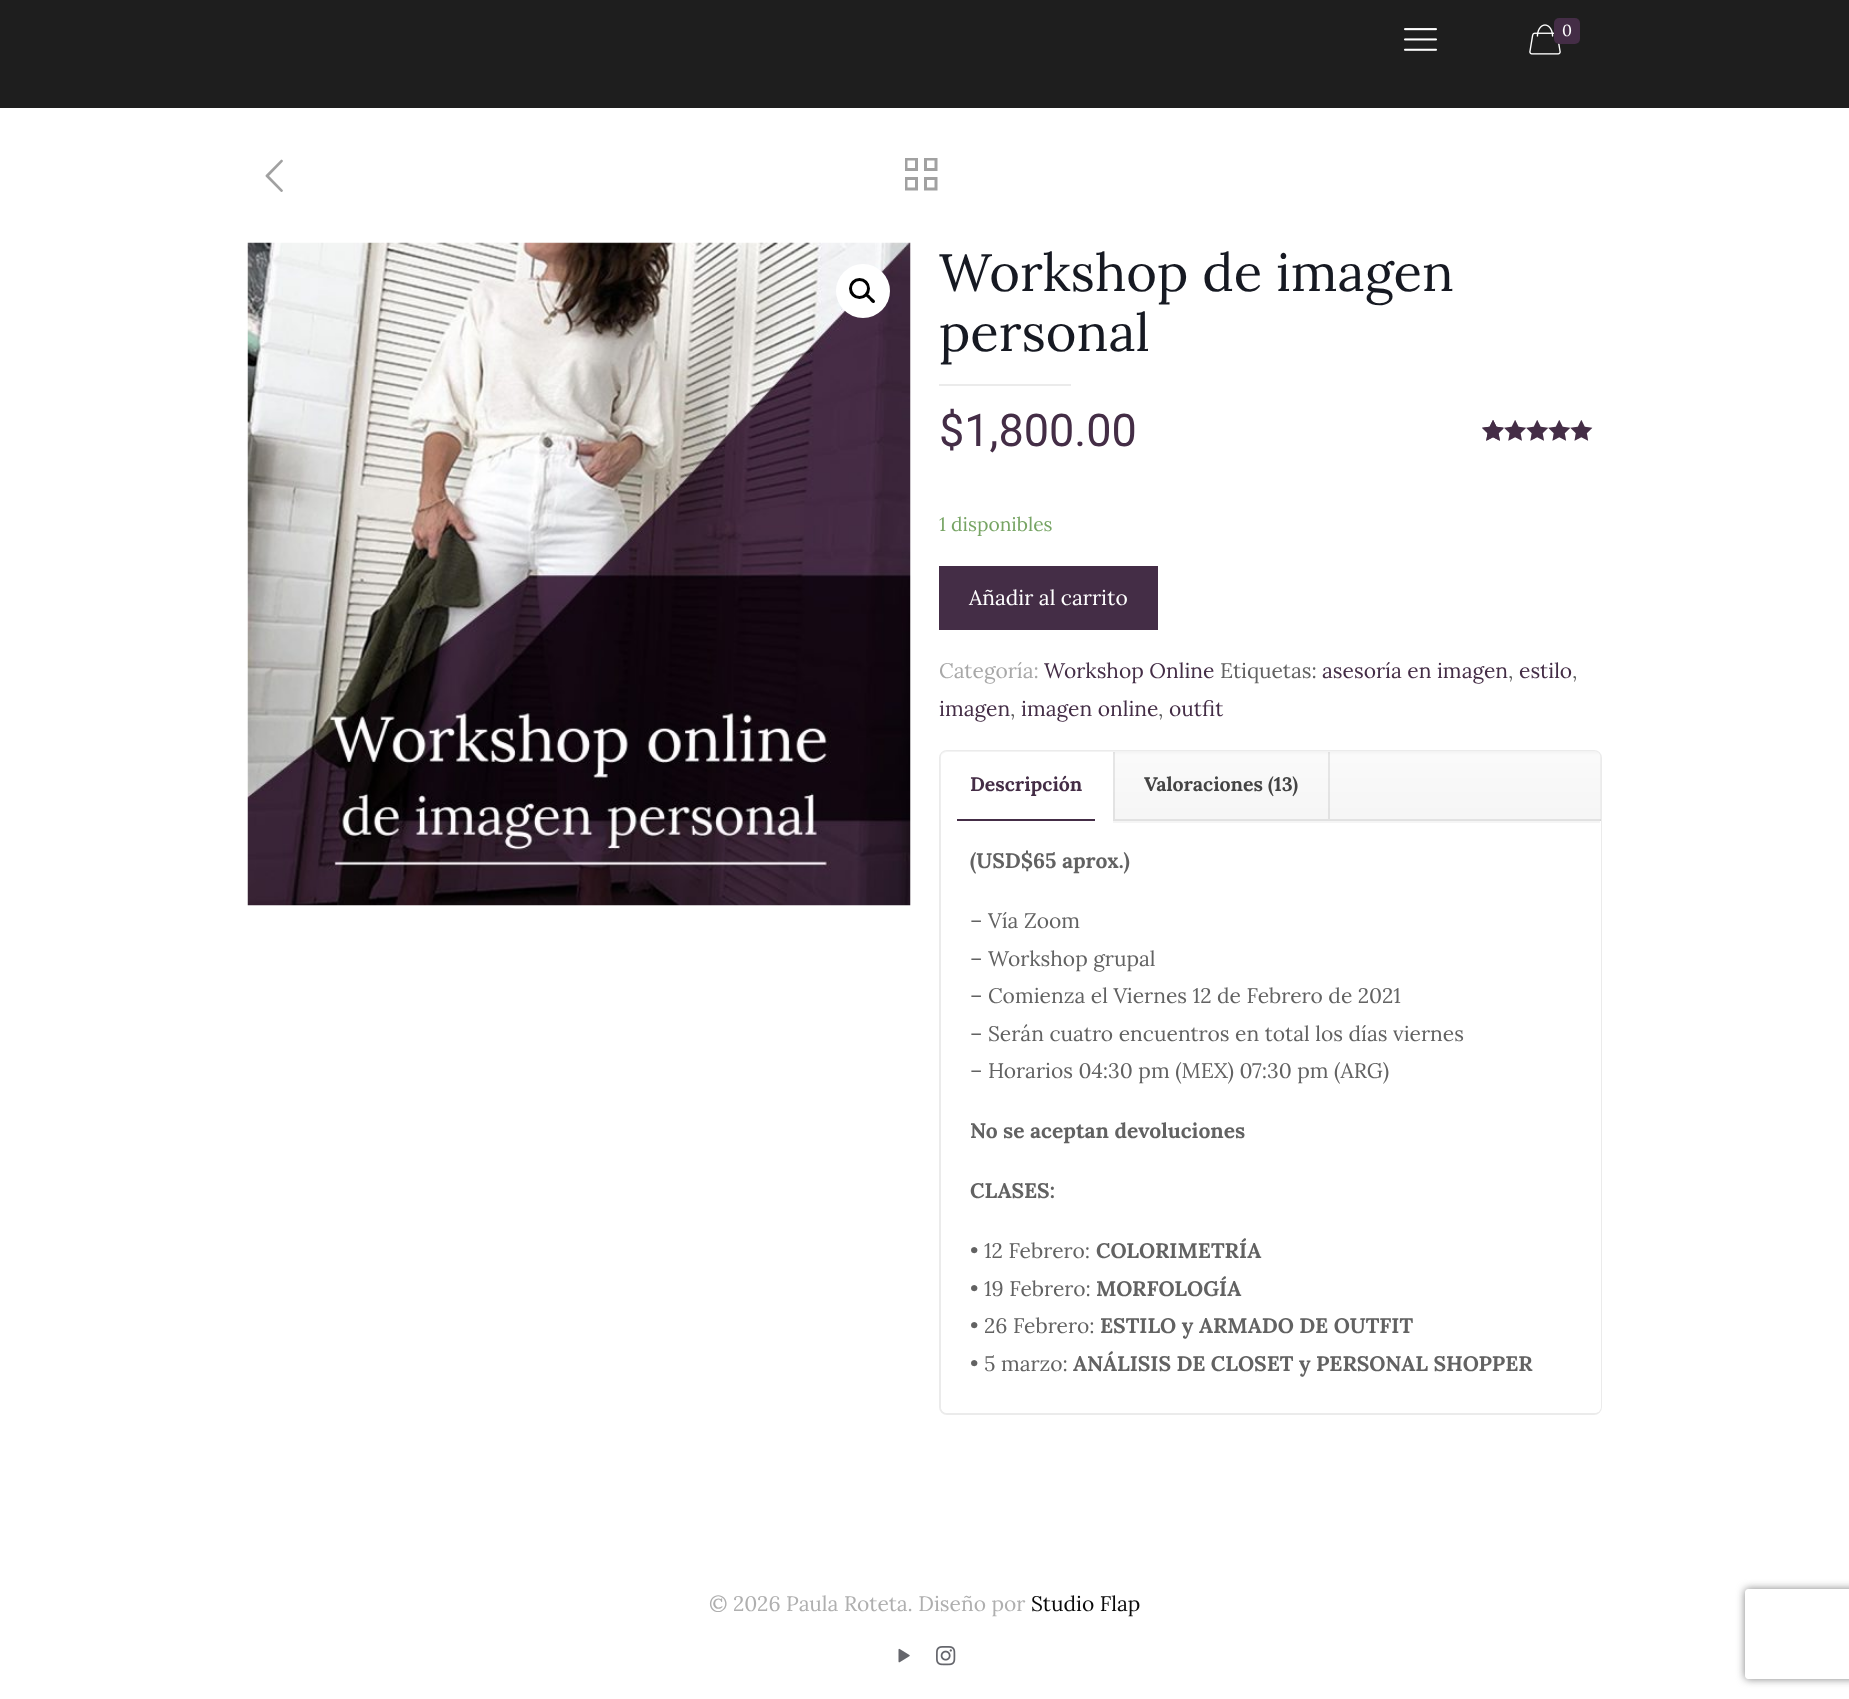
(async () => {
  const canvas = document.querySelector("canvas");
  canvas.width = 1849;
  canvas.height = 1699;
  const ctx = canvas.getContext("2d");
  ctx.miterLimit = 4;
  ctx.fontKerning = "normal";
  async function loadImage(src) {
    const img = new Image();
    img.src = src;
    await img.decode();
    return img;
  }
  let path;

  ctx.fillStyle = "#ffffff";
  ctx.fillRect(0, 0, 1849, 1699);
  ctx.fillStyle = "#1e1e1e";
  ctx.fillRect(0, 0, 1849, 108);
  ctx.drawImage(await loadImage("img/1.png"), 1404, 28, 33, 23);
  ctx.drawImage(await loadImage("img/2.png"), 1529, 24, 32, 31);
  ctx.fillStyle = "#442d46";
  ctx.beginPath();
  ctx.roundRect(1554, 18, 26, 26, 5);
  ctx.fill();
  ctx.drawImage(await loadImage("img/3.png"), 265, 159, 18, 33);
  ctx.drawImage(await loadImage("img/4.png"), 905, 158, 33, 33);
  ctx.drawImage(await loadImage("img/5.png"), 247, 242, 664, 664);
  ctx.fillStyle = "#ffffff";
  ctx.beginPath();
  ctx.arc(863, 291, 27, 0, Math.PI * 2);
  ctx.fill();
  ctx.beginPath();
  ctx.arc(859.5, 288.5, 9, 0, Math.PI * 2);
  ctx.strokeStyle = "#000000";
  ctx.lineWidth = 3;
  ctx.stroke();
  ctx.fillStyle = "#000000";
  path = new Path2D("M866 294.5C868 292.5 870.5 296.5 871.5 297.5C872.5 298.5 876.5 301 874.5 302.5C873 304.5 870 300.5 869.5 299.5C868.5 298.5 864.5 296 866 294.5Z");
  ctx.fill(path);
  ctx.fillStyle = "#ebebeb";
  ctx.fillRect(939, 384, 132, 2);
  ctx.drawImage(await loadImage("img/6.png"), 1482, 420, 110, 21);
  ctx.drawImage(await loadImage("img/7.png"), 1482, 420, 111, 21);
  ctx.drawImage(await loadImage("img/8.png"), 1482, 420, 21, 21);
  ctx.fillStyle = "#442d46";
  ctx.fillRect(939, 566, 219, 64);
  ctx.beginPath();
  ctx.roundRect(940, 751, 661, 663, 7);
  ctx.strokeStyle = "#ebebeb";
  ctx.lineWidth = 2;
  ctx.stroke();
  ctx.drawImage(await loadImage("img/9.png"), 940, 751, 661, 69);
  ctx.fillStyle = "rgba(0, 0, 0, 0.08)";
  ctx.fillRect(1113, 819, 488, 2);
  ctx.fillRect(1113, 752, 2, 67);
  ctx.fillStyle = "#ffffff";
  ctx.beginPath();
  ctx.roundRect(941, 752, 172, 67, [6, 0, 0, 0]);
  ctx.fill();
  for (const [x, y, w, h, color] of [
    [941, 819, 172, 1, "#ffffff"],
    [957, 819, 138, 2, "#442d46"],
    [1328, 752, 2, 67, "rgba(0, 0, 0, 0.08)"],
  ]) {
    ctx.fillStyle = color;
    ctx.fillRect(x, y, w, h);
  }
  ctx.fillStyle = "#ffffff";
  ctx.beginPath();
  ctx.roundRect(941, 821, 660, 592, [0, 0, 6, 6]);
  ctx.fill();
  ctx.fillStyle = "rgba(0, 0, 0, 0.04)";
  ctx.fillRect(1113, 820, 487, 3);
  ctx.drawImage(await loadImage("img/10.png"), 898, 1648, 12, 15);
  ctx.drawImage(await loadImage("img/11.png"), 936, 1646, 20, 20);
  ctx.save();
  path = new Path2D("M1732 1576H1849V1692H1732ZM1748 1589H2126C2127.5 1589 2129 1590.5 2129 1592V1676C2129 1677.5 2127.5 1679 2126 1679H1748C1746.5 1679 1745 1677.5 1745 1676V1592C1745 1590.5 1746.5 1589 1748 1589Z");
  ctx.clip(path, "evenodd");
  ctx.fillStyle = "#808080";
  ctx.filter = "blur(4px)";
  ctx.beginPath();
  ctx.roundRect(1745, 1589, 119, 90, 3);
  ctx.fill();
  ctx.filter = "none";
  ctx.restore();
  ctx.font = "16px Lora";
  ctx.fillStyle = "#ffffff";
  ctx.fillText("0", 1562, 36);
  ctx.font = "52.5px Lora";
  ctx.fillStyle = "#161922";
  ctx.fillText("Workshop de imagen", 939, 291);
  ctx.fillText("personal", 939, 351);
  ctx.font = "45px Roboto";
  ctx.fillStyle = "#442d46";
  ctx.fillText("$1,800.00", 939, 446);
  ctx.font = "19.25px Lora";
  ctx.fillStyle = "#77a464";
  ctx.fillText("1 disponibles", 939, 531);
  ctx.font = "21px Lora";
  ctx.fillStyle = "#ffffff";
  ctx.fillText("Añadir al carrito", 969, 605);
  ctx.fillStyle = "#a8a8a8";
  ctx.fillText("Categoría:", 939, 678);
  ctx.fillStyle = "#442d46";
  ctx.fillText("Workshop Online", 1044, 678);
  ctx.fillStyle = "#626262";
  ctx.fillText("Etiquetas:", 1220, 678);
  ctx.fillStyle = "#442d46";
  ctx.fillText("asesoría en imagen", 1322, 678);
  ctx.fillStyle = "#626262";
  ctx.fillText(",", 1508, 678);
  ctx.fillStyle = "#442d46";
  ctx.fillText("estilo", 1519, 678);
  ctx.fillStyle = "#626262";
  ctx.fillText(",", 1572, 678);
  ctx.fillStyle = "#442d46";
  ctx.fillText("imagen", 939, 716);
  ctx.fillStyle = "#626262";
  ctx.fillText(",", 1010, 716);
  ctx.fillStyle = "#442d46";
  ctx.fillText("imagen online", 1021, 716);
  ctx.fillStyle = "#626262";
  ctx.fillText(",", 1158, 716);
  ctx.fillStyle = "#442d46";
  ctx.fillText("outfit", 1169, 716);
  ctx.font = "bold 19.5px Lora";
  ctx.fillText("Descripción", 970, 791);
  ctx.fillStyle = "#444444";
  ctx.fillText("Valoraciones (13)", 1144, 791);
  ctx.font = "bold 21px Lora";
  ctx.fillStyle = "#626262";
  ctx.fillText("(USD$65 aprox.)", 970, 868);
  ctx.font = "21px Lora";
  for (const [text, x, y] of [
    ["– Vía Zoom", 970, 928],
    ["– Workshop grupal", 970, 966],
    ["– Comienza el Viernes 12 de Febrero de 2021", 970, 1003],
    ["– Serán cuatro encuentros en total los días viernes", 970, 1041],
    ["– Horarios 04:30 pm (MEX) 07:30 pm (ARG)", 970, 1078],
  ]) {
    ctx.fillText(text, x, y);
  }
  ctx.font = "bold 21px Lora";
  ctx.fillText("No se aceptan devoluciones", 970, 1138);
  ctx.fillText("CLASES:", 970, 1198);
  ctx.font = "21px Lora";
  ctx.fillText("• 12 Febrero:", 970, 1258);
  ctx.font = "bold 21px Lora";
  ctx.fillText("COLORIMETRÍA", 1096, 1258);
  ctx.font = "21px Lora";
  ctx.fillText("• 19 Febrero:", 970, 1296);
  ctx.font = "bold 21px Lora";
  ctx.fillText("MORFOLOGÍA", 1096, 1296);
  ctx.font = "21px Lora";
  ctx.fillText("• 26 Febrero:", 970, 1333);
  ctx.font = "bold 21px Lora";
  ctx.fillText("ESTILO y ARMADO DE OUTFIT", 1100, 1333);
  ctx.font = "21px Lora";
  ctx.fillText("• 5 marzo:", 970, 1371);
  ctx.font = "bold 21px Lora";
  ctx.fillText("ANÁLISIS DE CLOSET y PERSONAL SHOPPER", 1073, 1371);
  ctx.font = "21px Lora";
  ctx.fillStyle = "#afafaf";
  ctx.fillText("© 2026 Paula Roteta. Diseño por", 709, 1611);
  ctx.fillStyle = "#0a0a0a";
  ctx.fillText("Studio Flap", 1031, 1611);
})();
